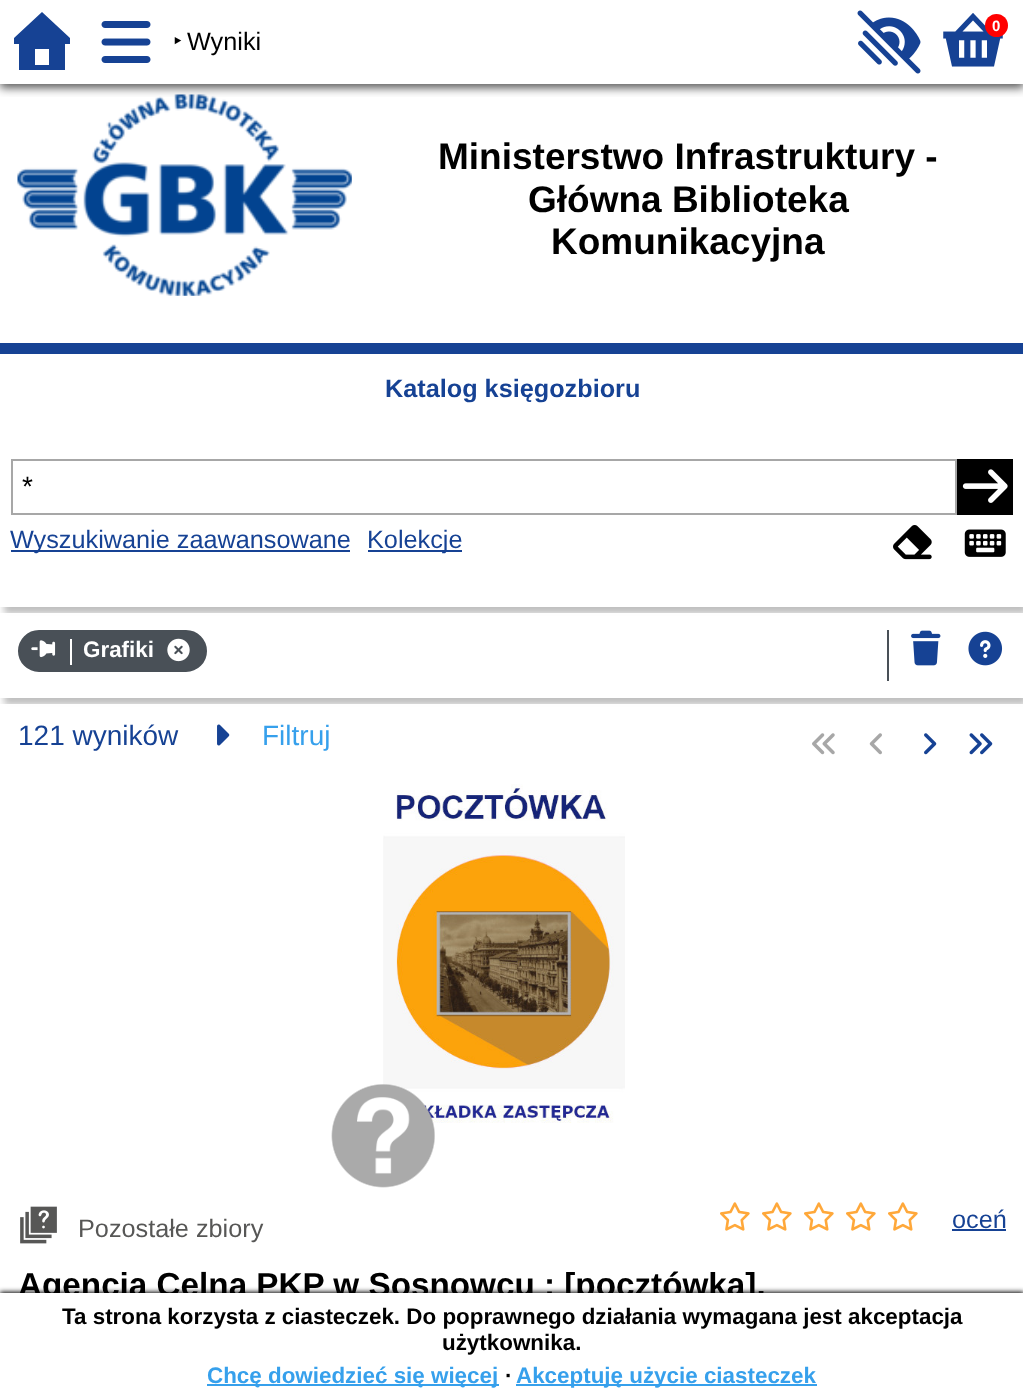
(async () => {
  const canvas = document.querySelector("canvas");
  canvas.width = 1023;
  canvas.height = 1394;
  const ctx = canvas.getContext("2d");
  ctx.miterLimit = 4;
  ctx.fontKerning = "normal";
  async function loadImage(src) {
    const img = new Image();
    img.src = src;
    await img.decode();
    return img;
  }
  let path;

  ctx.fillStyle = "#ffffff";
  ctx.fillRect(0, 0, 1023, 1394);
  ctx.drawImage(await loadImage("img/4.png"), 17, 94, 335, 202);
  ctx.save();
  ctx.beginPath();
  ctx.rect(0, 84, 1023, 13);
  ctx.clip();
  ctx.fillStyle = "rgba(0, 0, 0, 0.65)";
  ctx.filter = "blur(5px)";
  ctx.beginPath();
  ctx.rect(0, 4, 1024, 84);
  ctx.fill();
  ctx.filter = "none";
  ctx.restore();
  ctx.drawImage(await loadImage("img/1.png"), 857, 10, 64, 64);
  ctx.drawImage(await loadImage("img/2.png"), 943, 13, 60, 54);
  ctx.fillStyle = "#ff0000";
  ctx.beginPath();
  ctx.arc(996.5, 25.5, 11.5, 0, Math.PI * 2);
  ctx.fill();
  ctx.fillStyle = "#164294";
  path = new Path2D("M70 44H65V70H19V44H14V38L42 12L70 38ZM49 65V49H35V65Z");
  ctx.fill(path);
  ctx.drawImage(await loadImage("img/3.png"), 101, 21, 50, 42);
  ctx.save();
  ctx.beginPath();
  ctx.rect(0, 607, 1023, 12);
  ctx.clip();
  ctx.fillStyle = "rgba(0, 0, 0, 0.25)";
  ctx.filter = "blur(3.5px)";
  ctx.beginPath();
  ctx.rect(4, 350, 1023, 264);
  ctx.fill();
  ctx.filter = "none";
  ctx.restore();
  ctx.fillRect(0, 343, 1023, 11);
  ctx.strokeStyle = "#a7a7a7";
  ctx.lineWidth = 2;
  ctx.strokeRect(12, 460, 944, 54);
  ctx.fillStyle = "#000000";
  ctx.fillRect(957, 459, 56, 56);
  ctx.drawImage(await loadImage("img/5.png"), 962, 469, 46, 34);
  ctx.fillStyle = "#164294";
  ctx.fillRect(11, 550, 339, 2);
  ctx.fillRect(368, 550, 94, 2);
  ctx.drawImage(await loadImage("img/6.png"), 893, 525, 39, 35);
  ctx.drawImage(await loadImage("img/7.png"), 964, 529, 42, 28);
  ctx.save();
  ctx.beginPath();
  ctx.rect(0, 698, 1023, 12);
  ctx.clip();
  ctx.fillStyle = "rgba(0, 0, 0, 0.25)";
  ctx.filter = "blur(3.5px)";
  ctx.beginPath();
  ctx.rect(4, 620, 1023, 85);
  ctx.fill();
  ctx.filter = "none";
  ctx.restore();
  ctx.fillStyle = "rgba(255, 255, 255, 0.95)";
  ctx.fillRect(0, 613, 1023, 7);
  ctx.fillStyle = "#495057";
  ctx.beginPath();
  ctx.roundRect(19, 631, 187, 40, 20);
  ctx.fill();
  ctx.strokeStyle = "#495057";
  ctx.stroke();
  ctx.fillStyle = "#ffffff";
  ctx.fillRect(70, 639, 2, 26);
  ctx.drawImage(await loadImage("img/8.png"), 31, 640, 25, 18);
  ctx.drawImage(await loadImage("img/9.png"), 167, 638, 23, 24);
  ctx.fillStyle = "#495057";
  ctx.fillRect(887, 630, 2, 51);
  ctx.drawImage(await loadImage("img/10.png"), 911, 630, 30, 36);
  ctx.drawImage(await loadImage("img/11.png"), 968, 631, 35, 35);
  ctx.fillStyle = "rgba(255, 255, 255, 0.95)";
  ctx.fillRect(0, 704, 1023, 7);
  ctx.drawImage(await loadImage("img/12.png"), 217, 724, 13, 22);
  ctx.drawImage(await loadImage("img/13.png"), 812, 733, 23, 22);
  ctx.drawImage(await loadImage("img/14.png"), 869, 733, 13, 22);
  ctx.drawImage(await loadImage("img/15.png"), 924, 733, 13, 22);
  ctx.drawImage(await loadImage("img/16.png"), 969, 733, 24, 22);
  ctx.drawImage(await loadImage("img/17.png"), 383, 784, 242, 339);
  ctx.drawImage(await loadImage("img/18.png"), 331, 1084, 104, 104);
  ctx.drawImage(await loadImage("img/19.png"), 20, 1206, 37, 38);
  ctx.drawImage(await loadImage("img/20.png"), 720, 1202, 30, 29);
  ctx.drawImage(await loadImage("img/20.png"), 762, 1202, 30, 29);
  ctx.drawImage(await loadImage("img/20.png"), 804, 1202, 30, 29);
  ctx.drawImage(await loadImage("img/20.png"), 846, 1202, 30, 29);
  ctx.drawImage(await loadImage("img/20.png"), 888, 1202, 30, 29);
  ctx.fillStyle = "#164294";
  ctx.fillRect(952, 1229, 54, 2);
  ctx.fillStyle = "#000000";
  ctx.filter = "blur(2.5px)";
  ctx.beginPath();
  ctx.rect(0, 1292, 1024, 101);
  ctx.fill();
  ctx.filter = "none";
  ctx.font = "bold 15px Liberation Sans";
  ctx.fillStyle = "#ffffff";
  ctx.fillText("0", 992, 31);
  ctx.font = "25.25px Noto Sans";
  ctx.fillStyle = "#000000";
  ctx.fillText("‣", 173, 50);
  ctx.font = "25.25px Liberation Sans";
  ctx.fillText("Wyniki", 187, 50);
  ctx.font = "bold 37px Liberation Sans";
  for (const [text, x, y] of [
    ["Ministerstwo Infrastruktury -", 438, 169],
    ["Główna Biblioteka", 528, 212],
    ["Komunikacyjna", 551, 254],
  ]) {
    ctx.fillText(text, x, y);
  }
  ctx.font = "bold 25.25px Liberation Sans";
  ctx.fillStyle = "#164294";
  ctx.fillText("Katalog księgozbioru", 385, 397);
  ctx.font = "28px Liberation Sans";
  ctx.fillStyle = "#000000";
  ctx.fillText("*", 22, 496);
  ctx.font = "25.25px Liberation Sans";
  ctx.fillStyle = "#164294";
  ctx.fillText("Wyszukiwanie zaawansowane", 10, 548);
  ctx.fillText("Kolekcje", 367, 548);
  ctx.font = "bold 22.4px Liberation Sans";
  ctx.fillStyle = "#ffffff";
  ctx.fillText("Grafiki", 83, 657);
  ctx.font = "28px Liberation Sans";
  ctx.fillStyle = "#164294";
  ctx.fillText("121 wyników", 18, 745);
  ctx.fillStyle = "#36a0ec";
  ctx.fillText("Filtruj", 262, 745);
  ctx.font = "25.25px Liberation Sans";
  ctx.fillStyle = "#575756";
  ctx.fillText("Pozostałe zbiory", 78, 1237);
  ctx.fillStyle = "#164294";
  ctx.fillText("oceń", 952, 1228);
  ctx.font = "bold 33.25px Liberation Sans";
  ctx.fillStyle = "#000000";
  ctx.fillText("Agencja Celna PKP w Sosnowcu : [pocztówka].", 18, 1296);
  ctx.fillStyle = "#ffffff";
  ctx.fillRect(0, 1293, 1023, 101);
  ctx.font = "bold 22.4px Liberation Sans";
  ctx.fillStyle = "#000000";
  ctx.fillText("Ta strona korzysta z ciasteczek. Do poprawnego działania wymagana jest akceptacja", 62, 1324);
  ctx.fillText("użytkownika.", 442, 1350);
  ctx.fillStyle = "#36a0ec";
  ctx.fillRect(207, 1384, 292, 2);
  ctx.fillText("Chcę dowiedzieć się więcej", 207, 1383);
  ctx.fillStyle = "#000000";
  ctx.fillText("∙", 505, 1383);
  ctx.fillStyle = "#36a0ec";
  ctx.fillRect(516, 1384, 301, 2);
  ctx.fillText("Akceptuję użycie ciasteczek", 516, 1383);
})();
